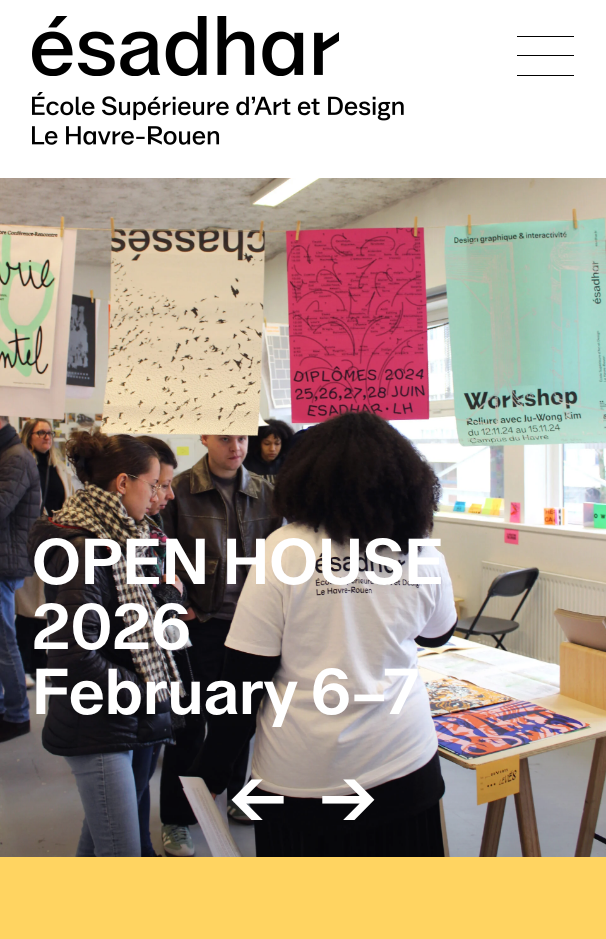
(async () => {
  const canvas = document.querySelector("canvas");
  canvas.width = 606;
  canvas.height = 939;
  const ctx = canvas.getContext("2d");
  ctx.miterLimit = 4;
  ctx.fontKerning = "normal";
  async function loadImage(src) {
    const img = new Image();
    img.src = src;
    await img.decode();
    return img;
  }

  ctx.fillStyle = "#ffffff";
  ctx.fillRect(0, 0, 606, 939);
  ctx.drawImage(await loadImage("img/1.png"), 32, 16, 307, 60);
  for (const [x, y, w, h, color] of [
    [517, 36, 57, 1, "#000000"],
    [517, 55, 57, 1, "#000000"],
    [517, 75, 57, 1, "#000000"],
  ]) {
    ctx.fillStyle = color;
    ctx.fillRect(x, y, w, h);
  }
  ctx.drawImage(await loadImage("img/2.png"), 32, 92, 372, 53);
  ctx.drawImage(await loadImage("img/3.png"), 0, 178, 606, 679);
  ctx.fillStyle = "#ffd461";
  ctx.fillRect(0, 857, 606, 82);
  ctx.font = "600 64.5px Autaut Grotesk";
  ctx.fillStyle = "#ffffff";
  for (const [text, x, y] of [
    ["OPEN HOUSE", 32, 584],
    ["2026", 32, 649],
    ["February 6–7", 32, 714],
  ]) {
    ctx.fillText(text, x, y);
  }
  ctx.font = "600 81px Autaut Grotesk";
  ctx.fillText("←", 229, 820);
  ctx.fillText("→", 319, 820);
})();
